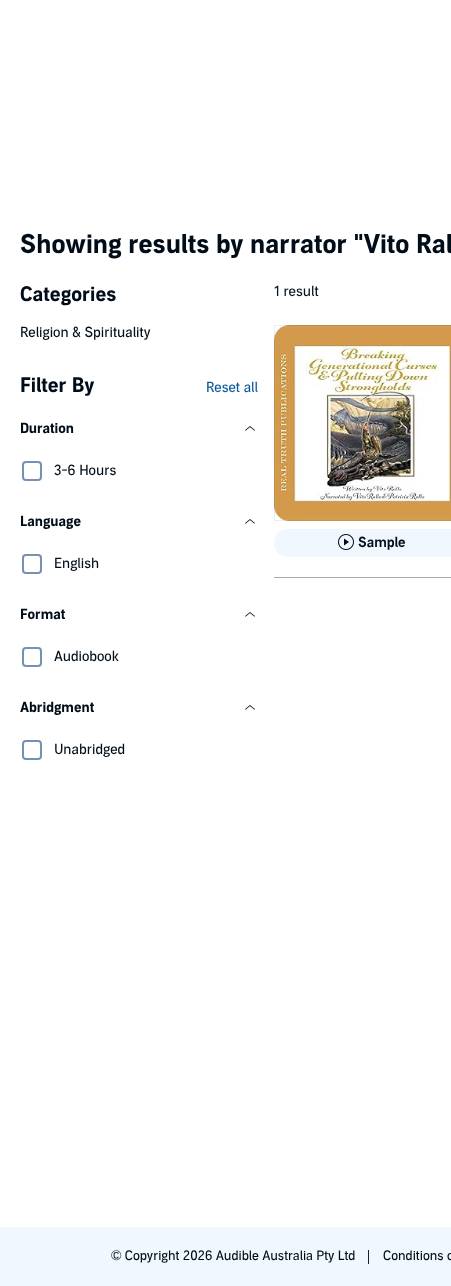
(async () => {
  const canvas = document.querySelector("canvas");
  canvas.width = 451;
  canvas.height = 1286;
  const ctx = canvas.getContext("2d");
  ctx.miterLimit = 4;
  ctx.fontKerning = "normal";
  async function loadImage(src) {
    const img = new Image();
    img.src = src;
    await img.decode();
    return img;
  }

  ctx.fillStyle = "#ffffff";
  ctx.fillRect(0, 0, 451, 1286);
  ctx.drawImage(await loadImage("img/1.png"), 245, 426, 10, 5);
  ctx.beginPath();
  ctx.roundRect(23, 462, 18, 18, 3);
  ctx.strokeStyle = "#7690b2";
  ctx.lineWidth = 2;
  ctx.stroke();
  ctx.drawImage(await loadImage("img/1.png"), 245, 519, 10, 5);
  ctx.beginPath();
  ctx.roundRect(23, 555, 18, 18, 3);
  ctx.stroke();
  ctx.drawImage(await loadImage("img/1.png"), 245, 612, 10, 5);
  ctx.beginPath();
  ctx.roundRect(23, 648, 18, 18, 3);
  ctx.stroke();
  ctx.drawImage(await loadImage("img/1.png"), 245, 705, 10, 5);
  ctx.beginPath();
  ctx.roundRect(23, 741, 18, 18, 3);
  ctx.stroke();
  ctx.drawImage(await loadImage("img/2.png"), 274, 325, 177, 196);
  ctx.strokeStyle = "rgba(33, 35, 37, 0.08)";
  ctx.lineWidth = 1;
  ctx.strokeRect(274.5, 325.5, 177, 195);
  ctx.fillStyle = "#f1f7fe";
  ctx.beginPath();
  ctx.roundRect(274, 529, 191, 28, 14);
  ctx.fill();
  ctx.drawImage(await loadImage("img/3.png"), 338, 534, 16, 16);
  for (const [x, y, w, h, color] of [
    [274, 577, 177, 1, "#a6abaf"],
    [0, 1227, 451, 59, "#f1f7fe"],
    [368, 1250, 1, 14, "#112235"],
  ]) {
    ctx.fillStyle = color;
    ctx.fillRect(x, y, w, h);
  }
  ctx.font = "bold 26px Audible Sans";
  ctx.fillStyle = "#010e19";
  ctx.fillText("Showing results by narrator \"Vito Ral", 20, 253);
  ctx.font = "bold 20px Audible Sans";
  ctx.fillText("Categories", 20, 301);
  ctx.font = "14px Audible Sans";
  ctx.fillText("Religion & Spirituality", 20, 337);
  ctx.font = "bold 20px Audible Sans";
  ctx.fillText("Filter By", 20, 392);
  ctx.font = "14px Audible Sans";
  ctx.fillStyle = "#0e5b9b";
  ctx.fillText("Reset all", 206, 392);
  ctx.font = "bold 14px Audible Sans";
  ctx.fillStyle = "#010e19";
  ctx.fillText("Duration", 20, 433);
  ctx.font = "14px Audible Sans";
  ctx.fillText("3-6 Hours", 54, 475);
  ctx.font = "bold 14px Audible Sans";
  ctx.fillText("Language", 20, 526);
  ctx.font = "14px Audible Sans";
  ctx.fillText("English", 54, 568);
  ctx.font = "bold 14px Audible Sans";
  ctx.fillText("Format", 20, 619);
  ctx.font = "14px Audible Sans";
  ctx.fillText("Audiobook", 54, 661);
  ctx.font = "bold 14px Audible Sans";
  ctx.fillText("Abridgment", 20, 712);
  ctx.font = "14px Audible Sans";
  ctx.fillText("Unabridged", 54, 754);
  ctx.fillStyle = "#061624";
  ctx.fillText("1 result", 274, 296);
  ctx.font = "600 14px Audible Sans";
  ctx.fillStyle = "#010e19";
  ctx.fillText("Sample", 358, 547);
  ctx.font = "13px Audible Sans";
  ctx.fillText("© Copyright 2026 Audible Australia Pty Ltd", 111, 1260);
  ctx.fillText("Conditions o", 383, 1260);
})();
